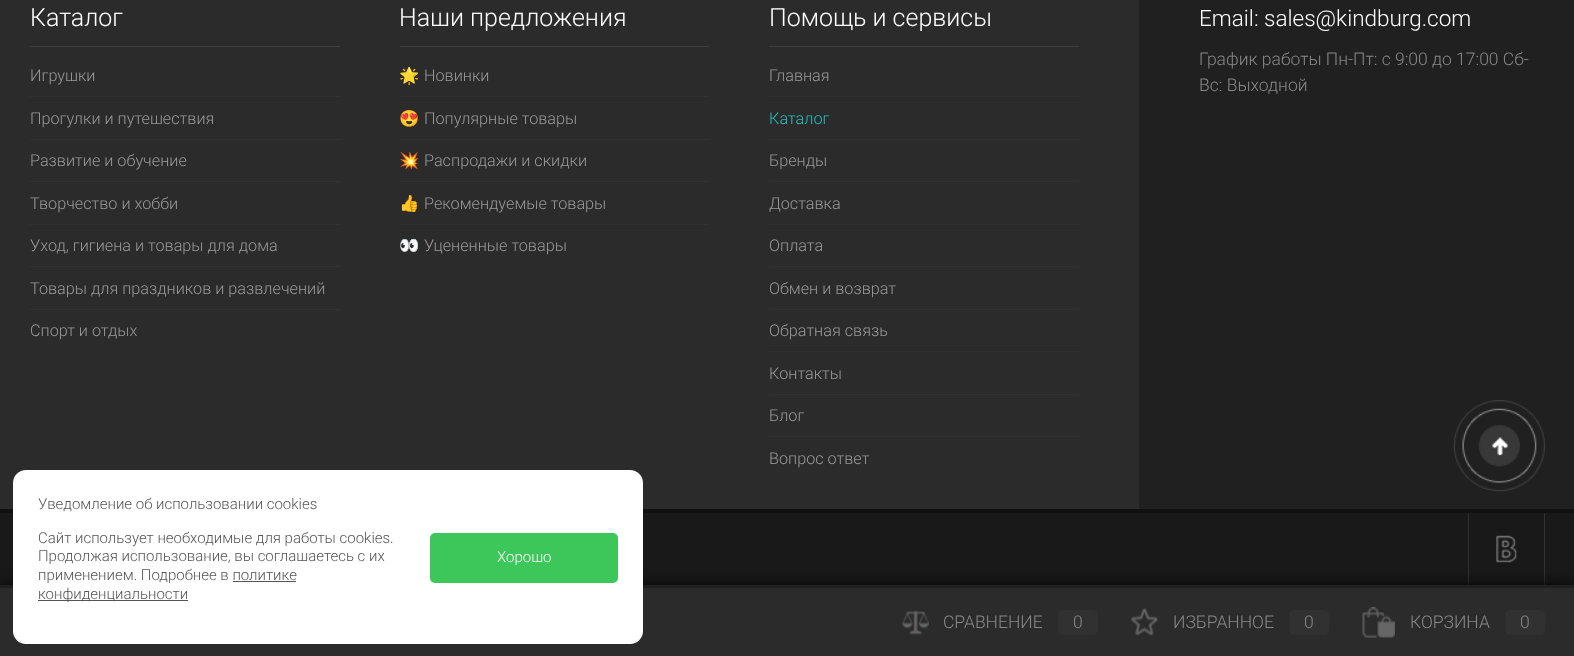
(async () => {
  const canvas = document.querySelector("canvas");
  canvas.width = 1574;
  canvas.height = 656;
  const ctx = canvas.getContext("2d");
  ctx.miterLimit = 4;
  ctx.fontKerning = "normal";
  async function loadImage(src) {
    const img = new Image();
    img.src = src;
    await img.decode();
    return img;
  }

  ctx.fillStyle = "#2b2b2b";
  ctx.fillRect(0, 0, 1574, 656);
  for (const [x, y, w, h, color] of [
    [30, 46, 310, 1, "#3e3e3e"],
    [30, 96, 310, 1, "#313131"],
    [30, 139, 310, 1, "#313131"],
    [30, 181, 310, 1, "#313131"],
    [30, 224, 310, 1, "#313131"],
    [30, 266, 310, 1, "#313131"],
    [30, 309, 310, 1, "#313131"],
    [400, 46, 309, 1, "#3e3e3e"],
    [400, 96, 309, 1, "#313131"],
    [400, 139, 309, 1, "#313131"],
    [400, 181, 309, 1, "#313131"],
    [400, 224, 309, 1, "#313131"],
    [769, 46, 310, 1, "#3e3e3e"],
    [769, 96, 310, 1, "#313131"],
    [769, 139, 310, 1, "#313131"],
    [769, 181, 310, 1, "#313131"],
    [769, 224, 310, 1, "#313131"],
    [769, 266, 310, 1, "#313131"],
    [769, 309, 310, 1, "#313131"],
    [769, 351, 310, 1, "#313131"],
    [769, 394, 310, 1, "#313131"],
    [769, 436, 310, 1, "#313131"],
    [1139, 0, 435, 509, "#202020"],
    [0, 513, 1574, 72, "#191919"],
    [0, 509, 1574, 4, "#101010"],
    [1544, 513, 1, 75, "#313131"],
    [1468, 513, 1, 75, "#313131"],
  ]) {
    ctx.fillStyle = color;
    ctx.fillRect(x, y, w, h);
  }
  ctx.drawImage(await loadImage("img/1.png"), 1496, 535, 21, 28);
  ctx.fillStyle = "#000000";
  ctx.filter = "blur(7.5px)";
  ctx.beginPath();
  ctx.rect(1, 586, 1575, 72);
  ctx.fill();
  ctx.filter = "none";
  ctx.fillStyle = "#2b2b2b";
  ctx.fillRect(0, 588, 1574, 68);
  ctx.fillStyle = "#202020";
  ctx.fillRect(0, 585, 1574, 3);
  ctx.drawImage(await loadImage("img/2.png"), 902, 610, 27, 25);
  ctx.fillStyle = "#313131";
  ctx.beginPath();
  ctx.roundRect(1058, 610, 40, 25, 5);
  ctx.fill();
  ctx.drawImage(await loadImage("img/3.png"), 1131, 608, 27, 28);
  ctx.beginPath();
  ctx.roundRect(1289, 610, 40, 25, 5);
  ctx.fill();
  ctx.drawImage(await loadImage("img/4.png"), 1362, 607, 33, 31);
  ctx.beginPath();
  ctx.roundRect(1505, 610, 40, 25, 5);
  ctx.fill();
  ctx.drawImage(await loadImage("img/5.png"), 1453, 400, 92, 92);
  ctx.fillStyle = "#ffffff";
  ctx.beginPath();
  ctx.roundRect(13, 470, 630, 174, 13);
  ctx.fill();
  ctx.fillStyle = "#555555";
  ctx.fillRect(233, 581, 63, 1);
  ctx.fillRect(38, 600, 150, 1);
  ctx.fillStyle = "#3dc75a";
  ctx.beginPath();
  ctx.roundRect(430, 533, 188, 50, 5);
  ctx.fill();
  ctx.font = "300 25px Roboto";
  ctx.fillStyle = "#ffffff";
  ctx.fillText("Каталог", 30, 26);
  ctx.font = "300 16.25px Roboto";
  ctx.fillStyle = "#999999";
  for (const [text, x, y] of [
    ["Игрушки", 30, 81],
    ["Прогулки и путешествия", 30, 124],
    ["Развитие и обучение", 30, 166],
    ["Творчество и хобби", 30, 209],
    ["Уход, гигиена и товары для дома", 30, 251],
    ["Товары для праздников и развлечений", 30, 294],
    ["Спорт и отдых", 30, 336],
  ]) {
    ctx.fillText(text, x, y);
  }
  ctx.font = "300 25px Roboto";
  ctx.fillStyle = "#ffffff";
  ctx.fillText("Наши предложения", 399, 26);
  ctx.font = "16.25px Noto Color Emoji";
  ctx.fillStyle = "#999999";
  ctx.fillText("🌟", 399, 81);
  ctx.font = "300 16.25px Roboto";
  ctx.fillText("Новинки", 424, 81);
  ctx.font = "16.25px Noto Color Emoji";
  ctx.fillText("😍", 399, 124);
  ctx.font = "300 16.25px Roboto";
  ctx.fillText("Популярные товары", 424, 124);
  ctx.font = "16.25px Noto Color Emoji";
  ctx.fillText("💥", 399, 166);
  ctx.font = "300 16.25px Roboto";
  ctx.fillText("Распродажи и скидки", 424, 166);
  ctx.font = "16.25px Noto Color Emoji";
  ctx.fillText("👍", 399, 209);
  ctx.font = "300 16.25px Roboto";
  ctx.fillText("Рекомендуемые товары", 424, 209);
  ctx.font = "16.25px Noto Color Emoji";
  ctx.fillText("👀", 399, 251);
  ctx.font = "300 16.25px Roboto";
  ctx.fillText("Уцененные товары", 424, 251);
  ctx.font = "300 25px Roboto";
  ctx.fillStyle = "#ffffff";
  ctx.fillText("Помощь и сервисы", 769, 26);
  ctx.font = "300 16.25px Roboto";
  ctx.fillStyle = "#999999";
  ctx.fillText("Главная", 769, 81);
  ctx.fillStyle = "#27bfc1";
  ctx.fillText("Каталог", 769, 124);
  ctx.fillStyle = "#999999";
  for (const [text, x, y] of [
    ["Бренды", 769, 166],
    ["Доставка", 769, 209],
    ["Оплата", 769, 251],
    ["Обмен и возврат", 769, 294],
    ["Обратная связь", 769, 336],
    ["Контакты", 769, 379],
    ["Блог", 769, 421],
    ["Вопрос ответ", 769, 464],
  ]) {
    ctx.fillText(text, x, y);
  }
  ctx.font = "300 22.5px Roboto";
  ctx.fillStyle = "#ffffff";
  ctx.fillText("Email: sales@kindburg.com", 1199, 26);
  ctx.font = "300 17.5px Roboto";
  ctx.fillStyle = "#888888";
  for (const [text, x, y] of [
    ["График работы Пн-Пт: с 9:00 до 17:00 Сб-", 1199, 65],
    ["Вс: Выходной", 1199, 91],
    ["СРАВНЕНИЕ", 943, 628],
    ["0", 1073, 628],
    ["ИЗБРАННОЕ", 1173, 628],
    ["0", 1304, 628],
    ["КОРЗИНА", 1410, 628],
    ["0", 1520, 628],
  ]) {
    ctx.fillText(text, x, y);
  }
  ctx.font = "300 15px Roboto";
  ctx.fillStyle = "#555555";
  for (const [text, x, y] of [
    ["Уведомление об использовании cookies", 38, 509],
    ["Сайт использует необходимые для работы cookies.", 38, 543],
    ["Продолжая использование, вы соглашаетесь с их", 38, 561],
    ["применением. Подробнее в политике", 38, 580],
    ["конфиденциальности", 38, 599],
  ]) {
    ctx.fillText(text, x, y);
  }
  ctx.fillStyle = "#ffffff";
  ctx.fillText("Хорошо", 497, 562);
})();
